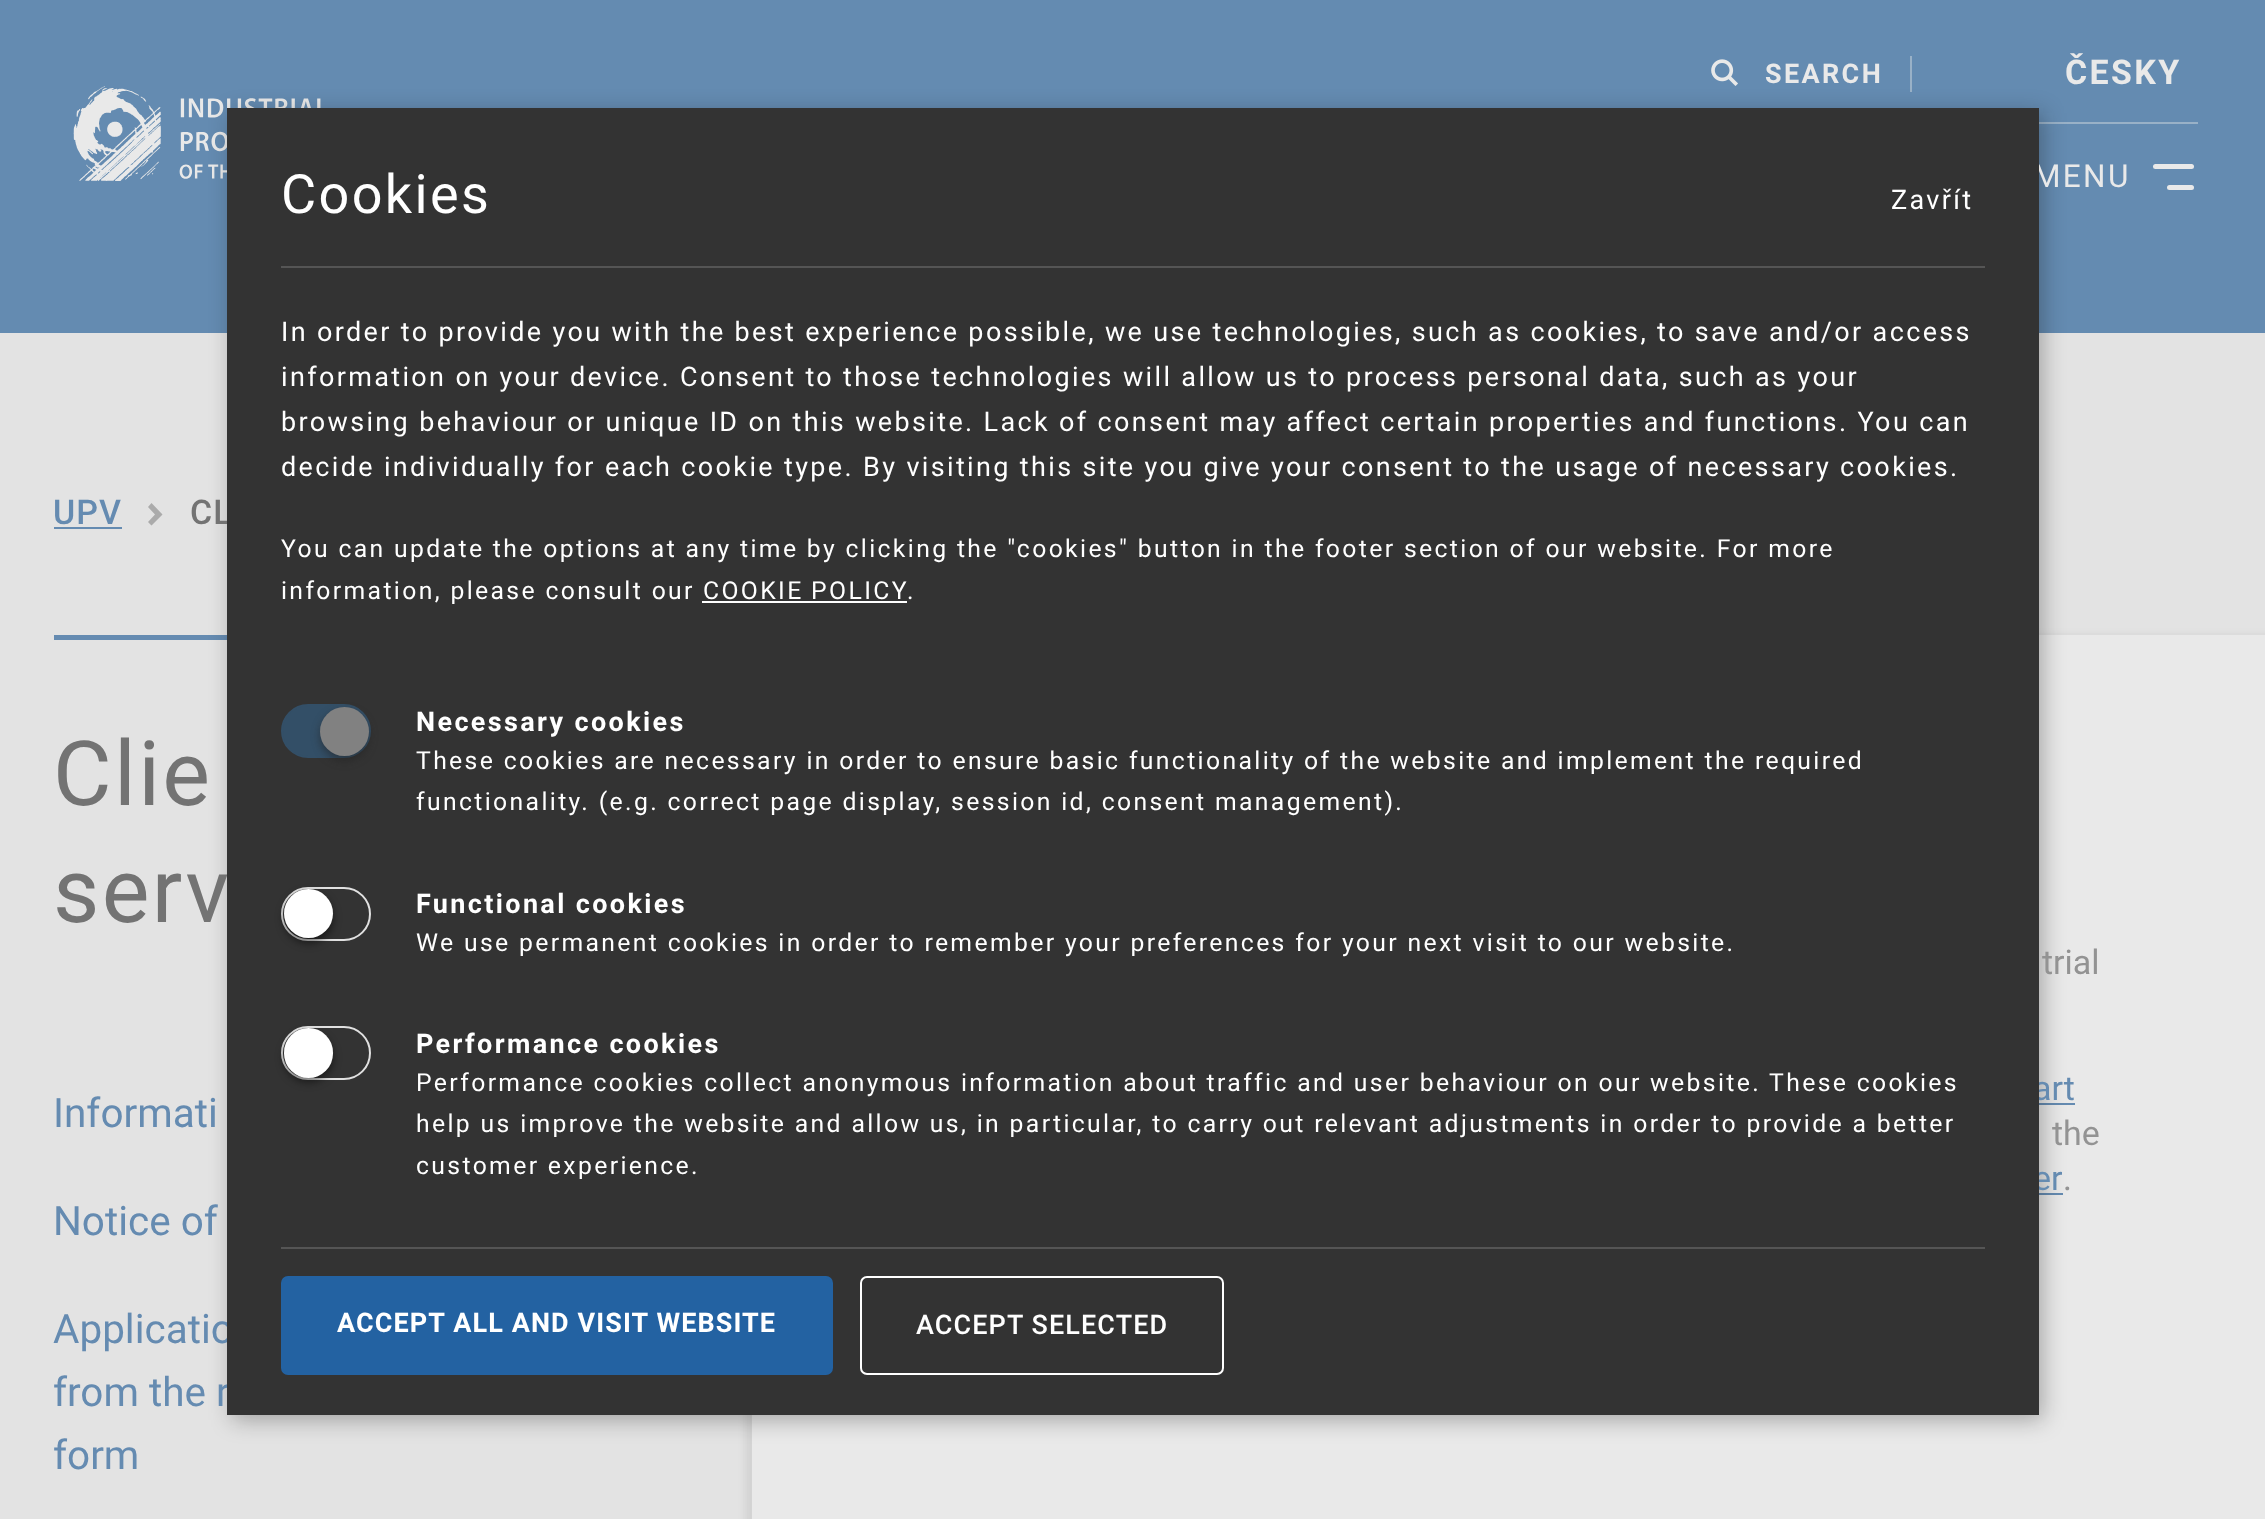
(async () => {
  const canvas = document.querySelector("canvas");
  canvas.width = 2265;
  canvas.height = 1519;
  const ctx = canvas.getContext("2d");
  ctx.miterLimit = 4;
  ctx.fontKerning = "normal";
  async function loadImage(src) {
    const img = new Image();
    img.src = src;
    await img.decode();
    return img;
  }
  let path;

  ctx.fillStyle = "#e3e3e3";
  ctx.fillRect(0, 0, 2265, 1519);
  ctx.fillStyle = "#648bb1";
  ctx.fillRect(0, 0, 2265, 333);
  ctx.drawImage(await loadImage("img/1.png"), 73, 86, 248, 95);
  ctx.fillStyle = "#99b1c7";
  ctx.fillRect(2039, 122, 159, 2);
  ctx.fillRect(1910, 56, 2, 36);
  ctx.drawImage(await loadImage("img/2.png"), 1711, 59, 27, 27);
  ctx.fillStyle = "#e9e9e9";
  ctx.beginPath();
  ctx.roundRect(2153, 164, 41, 5, 2.5);
  ctx.fill();
  ctx.beginPath();
  ctx.roundRect(2167, 185, 27, 5, 2.5);
  ctx.fill();
  ctx.fillStyle = "#658bb1";
  ctx.fillRect(54, 527, 68, 2);
  ctx.fillStyle = "#ababab";
  path = new Path2D("M155 514.5L148 522L151.5 525.5L162.5 514.5L151.5 503L148 507Z");
  ctx.fill(path);
  ctx.fillStyle = "#658bb1";
  ctx.fillRect(54, 635, 173, 5);
  ctx.fillStyle = "rgba(195, 195, 195, 0.5)";
  ctx.filter = "blur(3.5px)";
  ctx.beginPath();
  ctx.rect(745, 635, 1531, 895);
  ctx.fill();
  ctx.filter = "none";
  for (const [x, y, w, h, color] of [
    [752, 635, 1513, 884, "#e9e9e9"],
    [2039, 1103, 36, 2, "#658bb1"],
    [2039, 1193, 24, 2, "#658bb1"],
  ]) {
    ctx.fillStyle = color;
    ctx.fillRect(x, y, w, h);
  }
  ctx.fillStyle = "rgba(10, 10, 10, 0.3)";
  ctx.filter = "blur(11px)";
  ctx.beginPath();
  ctx.rect(232, 113, 1811, 1307);
  ctx.fill();
  ctx.filter = "none";
  ctx.letterSpacing = "2.36px";
  ctx.font = "bold 27px Roboto";
  ctx.fillStyle = "#e9e9e9";
  ctx.fillText("SEARCH", 1765, 83);
  ctx.font = "bold 34px Roboto";
  ctx.fillText("ČESKY", 2065, 84);
  ctx.font = "31.5px Roboto";
  ctx.fillText("MENU", 2033, 187);
  ctx.letterSpacing = "1.1px";
  ctx.font = "500 34px Roboto";
  ctx.fillStyle = "#658bb1";
  ctx.fillText("UPV", 53, 524);
  ctx.fillStyle = "#737373";
  ctx.fillText("CL", 190, 524);
  ctx.letterSpacing = "2.36px";
  ctx.font = "90px Roboto";
  ctx.fillText("Clie", 53, 805);
  ctx.fillText("serv", 53, 922);
  ctx.letterSpacing = "0px";
  ctx.font = "40.5px Roboto";
  ctx.fillStyle = "#658bb1";
  for (const [text, x, y] of [
    ["Informati", 53, 1127],
    ["Notice of", 53, 1235],
    ["Applicatio", 53, 1343],
    ["from the r", 53, 1406],
    ["form", 53, 1469],
  ]) {
    ctx.fillText(text, x, y);
  }
  ctx.font = "34px Roboto";
  ctx.fillStyle = "#939393";
  ctx.fillText("trial", 2042, 974);
  ctx.fillStyle = "#658bb1";
  ctx.fillText("art", 2033, 1100);
  ctx.fillStyle = "#939393";
  ctx.fillText("the", 2052, 1145);
  ctx.wordSpacing = "-1px";
  ctx.fillStyle = "#658bb1";
  ctx.fillText("er", 2033, 1190);
  ctx.wordSpacing = "0px";
  ctx.fillStyle = "#939393";
  ctx.fillText(".", 2063, 1190);
  ctx.fillStyle = "#333333";
  ctx.fillRect(227, 108, 1812, 1307);
  ctx.fillStyle = "#555555";
  ctx.fillRect(281, 266, 1704, 2);
  ctx.letterSpacing = "2.36px";
  ctx.font = "54px Roboto";
  ctx.fillStyle = "#ffffff";
  ctx.fillText("Cookies", 281, 213);
  ctx.font = "27px Roboto";
  for (const [text, x, y] of [
    ["Zavřít", 1891, 209],
    ["In order to provide you with the best experience possible, we use technologies, such as cookies, to save and/or access", 281, 341],
    ["information on your device. Consent to those technologies will allow us to process personal data, such as your", 281, 386],
    ["browsing behaviour or unique ID on this website. Lack of consent may affect certain properties and functions. You can", 281, 431],
    ["decide individually for each cookie type. By visiting this site you give your consent to the usage of necessary cookies.", 281, 476],
  ]) {
    ctx.fillText(text, x, y);
  }
  ctx.font = "24.75px Roboto";
  ctx.fillText("You can update the options at any time by clicking the \"cookies\" button in the footer section of our website. For more", 281, 557);
  ctx.fillText("information, please consult our", 281, 599);
  ctx.wordSpacing = "-1px";
  ctx.fillText("COOKIE POLICY", 703, 599);
  ctx.fillRect(702, 601, 205, 2);
  ctx.wordSpacing = "0px";
  ctx.fillText(".", 907, 599);
  ctx.fillStyle = "#334f67";
  ctx.beginPath();
  ctx.roundRect(282, 705, 88, 52, 26);
  ctx.fill();
  ctx.strokeStyle = "#334f67";
  ctx.lineWidth = 2;
  ctx.stroke();
  ctx.fillStyle = "rgba(32, 32, 32, 0.5)";
  ctx.filter = "blur(4.5px)";
  ctx.beginPath();
  ctx.roundRect(320, 711, 49, 50, 24.5);
  ctx.fill();
  ctx.filter = "none";
  ctx.fillStyle = "#818181";
  ctx.beginPath();
  ctx.arc(344.5, 731.5, 24.5, 0, Math.PI * 2);
  ctx.fill();
  ctx.font = "bold 27px Roboto";
  ctx.fillStyle = "#ffffff";
  ctx.fillText("Necessary cookies", 416, 731);
  ctx.font = "24.75px Roboto";
  ctx.fillText("These cookies are necessary in order to ensure basic functionality of the website and implement the required", 416, 769);
  ctx.fillText("functionality. (e.g. correct page display, session id, consent management).", 416, 810);
  ctx.beginPath();
  ctx.roundRect(282, 888, 88, 52, 26);
  ctx.strokeStyle = "#e1e1e1";
  ctx.stroke();
  ctx.fillStyle = "rgba(0, 0, 0, 0.5)";
  ctx.filter = "blur(4.5px)";
  ctx.beginPath();
  ctx.roundRect(284, 893, 49, 50, 24.5);
  ctx.fill();
  ctx.filter = "none";
  ctx.fillStyle = "#ffffff";
  ctx.beginPath();
  ctx.arc(308.5, 913.5, 24.5, 0, Math.PI * 2);
  ctx.fill();
  ctx.font = "bold 27px Roboto";
  ctx.fillText("Functional cookies", 416, 913);
  ctx.font = "24.75px Roboto";
  ctx.fillText("We use permanent cookies in order to remember your preferences for your next visit to our website.", 416, 951);
  ctx.beginPath();
  ctx.roundRect(282, 1027, 88, 52, 26);
  ctx.stroke();
  ctx.fillStyle = "rgba(0, 0, 0, 0.5)";
  ctx.filter = "blur(4.5px)";
  ctx.beginPath();
  ctx.roundRect(284, 1033, 49, 49, 24.5);
  ctx.fill();
  ctx.filter = "none";
  ctx.fillStyle = "#ffffff";
  ctx.beginPath();
  ctx.roundRect(284, 1028, 49, 50, 24.5);
  ctx.fill();
  ctx.font = "bold 27px Roboto";
  ctx.fillText("Performance cookies", 416, 1053);
  ctx.font = "24.75px Roboto";
  for (const [text, x, y] of [
    ["Performance cookies collect anonymous information about traffic and user behaviour on our website. These cookies", 416, 1091],
    ["help us improve the website and allow us, in particular, to carry out relevant adjustments in order to provide a better", 416, 1132],
    ["customer experience.", 416, 1174],
  ]) {
    ctx.fillText(text, x, y);
  }
  ctx.fillStyle = "#555555";
  ctx.fillRect(281, 1247, 1704, 2);
  ctx.fillStyle = "#2362a2";
  ctx.beginPath();
  ctx.roundRect(282, 1277, 550, 97, 6);
  ctx.fill();
  ctx.strokeStyle = "#2362a2";
  ctx.stroke();
  ctx.letterSpacing = "1.1px";
  ctx.font = "bold 27px Roboto";
  ctx.fillStyle = "#ffffff";
  ctx.fillText("ACCEPT ALL AND VISIT WEBSITE", 337, 1332);
  ctx.beginPath();
  ctx.roundRect(861, 1277, 362, 97, 6);
  ctx.strokeStyle = "#ffffff";
  ctx.stroke();
  ctx.font = "500 27px Roboto";
  ctx.fillText("ACCEPT SELECTED", 916, 1334);
})();
